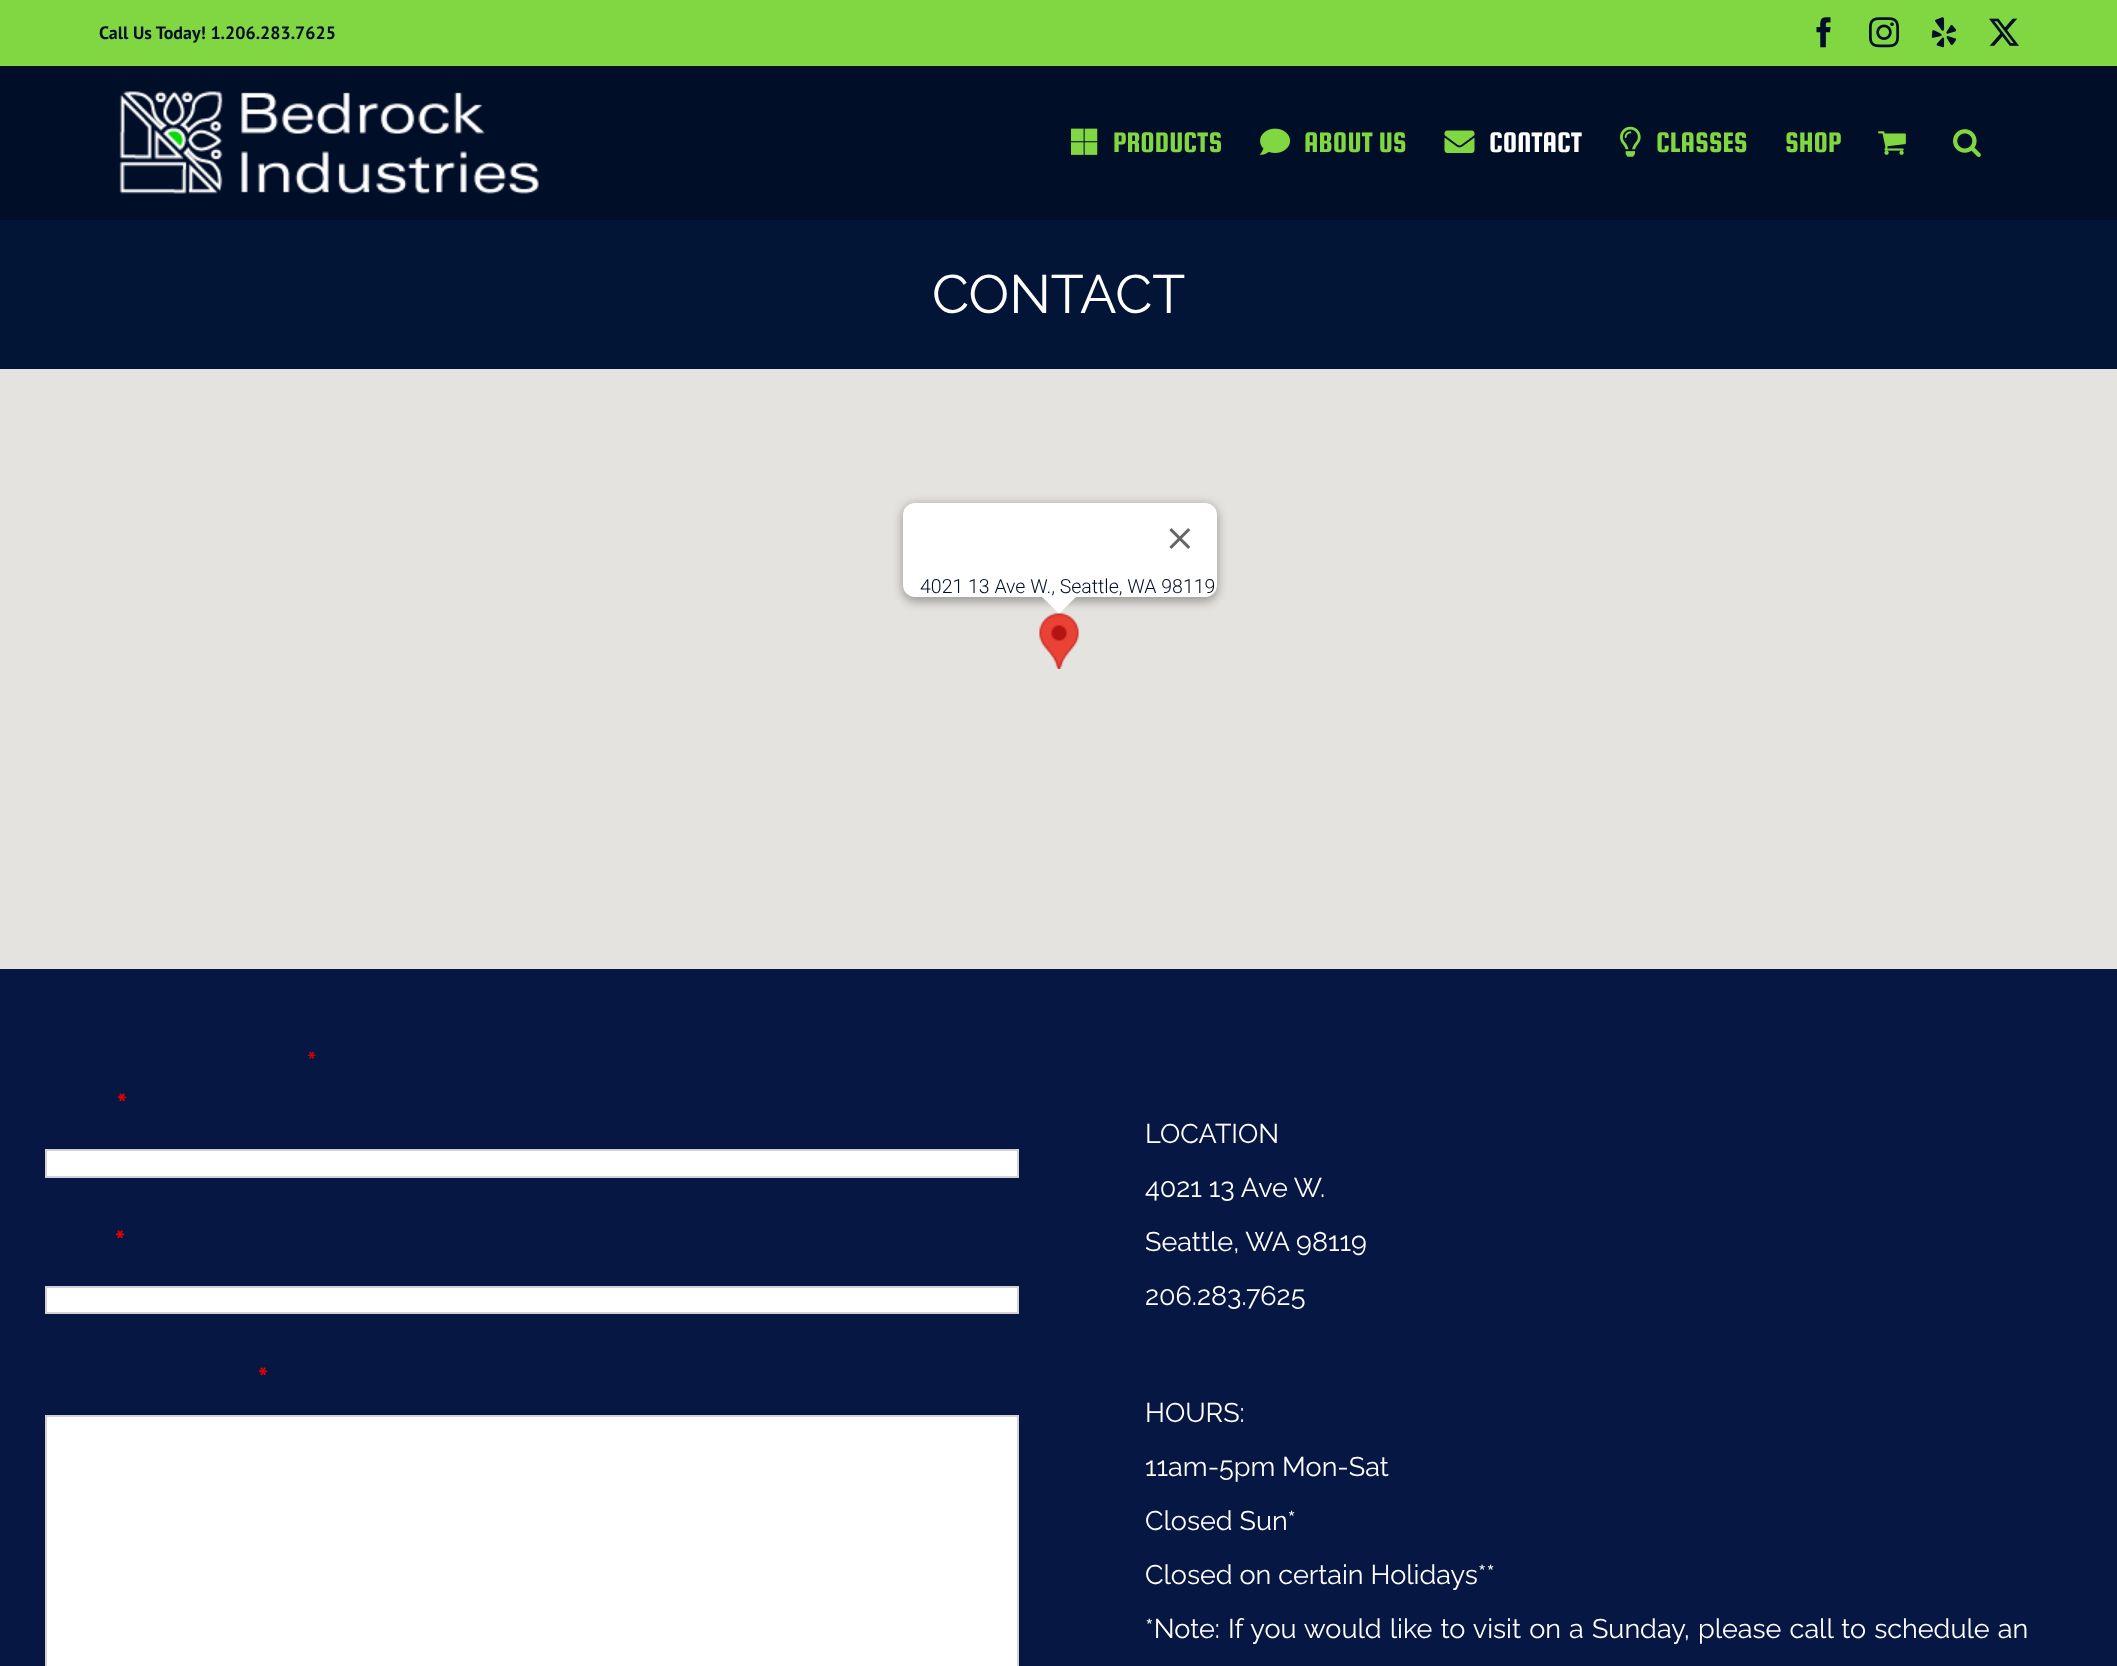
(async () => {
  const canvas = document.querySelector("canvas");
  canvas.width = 2117;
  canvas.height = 1666;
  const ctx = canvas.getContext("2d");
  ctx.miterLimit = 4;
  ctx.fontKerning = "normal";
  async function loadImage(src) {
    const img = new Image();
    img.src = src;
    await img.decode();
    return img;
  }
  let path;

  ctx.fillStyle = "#021537";
  ctx.fillRect(0, 0, 2117, 1666);
  ctx.fillStyle = "#81d742";
  ctx.fillRect(0, 0, 2117, 66);
  ctx.fillStyle = "#000e28";
  ctx.fillRect(0, 66, 2117, 154);
  ctx.drawImage(await loadImage("img/1.png"), 1816, 17, 15, 31);
  ctx.drawImage(await loadImage("img/2.png"), 1869, 17, 30, 31);
  ctx.drawImage(await loadImage("img/3.png"), 1931, 17, 26, 31);
  ctx.drawImage(await loadImage("img/4.png"), 1989, 18, 30, 28);
  ctx.drawImage(await loadImage("img/5.png"), 119, 91, 420, 103);
  ctx.drawImage(await loadImage("img/6.png"), 1071, 128, 27, 27);
  ctx.drawImage(await loadImage("img/7.png"), 1260, 128, 31, 27);
  ctx.drawImage(await loadImage("img/8.png"), 1444, 130, 31, 23);
  ctx.drawImage(await loadImage("img/9.png"), 1620, 126, 21, 31);
  ctx.drawImage(await loadImage("img/10.png"), 1878, 131, 28, 24);
  ctx.drawImage(await loadImage("img/11.png"), 1953, 129, 28, 28);
  ctx.fillStyle = "#e5e3df";
  ctx.fillRect(0, 369, 2117, 600);
  ctx.drawImage(await loadImage("img/13.png"), 1039, 613, 40, 56);
  ctx.fillStyle = "rgba(0, 0, 0, 0.3)";
  ctx.filter = "blur(5px)";
  ctx.beginPath();
  ctx.roundRect(902, 504, 316, 98, 14);
  ctx.fill();
  ctx.filter = "none";
  ctx.fillStyle = "#ffffff";
  ctx.beginPath();
  ctx.roundRect(903, 503, 314, 94, 12);
  ctx.fill();
  ctx.drawImage(await loadImage("img/12.png"), 1169, 528, 22, 21);
  path = new Path2D("M1041 596L1059 613.5L1077 596Z");
  ctx.fill(path);
  ctx.fillStyle = "#051742";
  ctx.fillRect(0, 969, 2117, 697);
  ctx.fillStyle = "#ffffff";
  ctx.beginPath();
  ctx.rect(46, 1150, 972, 27);
  ctx.fill();
  ctx.strokeStyle = "#d2d2d2";
  ctx.lineWidth = 2;
  ctx.stroke();
  ctx.beginPath();
  ctx.rect(46, 1287, 972, 26);
  ctx.fill();
  ctx.stroke();
  ctx.beginPath();
  ctx.rect(46, 1416, 972, 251);
  ctx.fill();
  ctx.stroke();
  ctx.font = "bold 18px PT Sans";
  ctx.fillStyle = "#000e28";
  ctx.fillText("Call Us Today! 1.206.283.7625", 99, 39);
  ctx.font = "30px Squada One";
  ctx.fillStyle = "#81d742";
  ctx.fillText("PRODUCTS", 1113, 152);
  ctx.fillText("ABOUT US", 1304, 152);
  ctx.fillStyle = "#ffffff";
  ctx.fillText("CONTACT", 1489, 152);
  ctx.fillStyle = "#81d742";
  ctx.fillText("CLASSES", 1656, 152);
  ctx.fillText("SHOP", 1785, 152);
  ctx.font = "100 54px Raleway";
  ctx.fillStyle = "#ffffff";
  ctx.fillText("CONTACT", 932, 313);
  ctx.font = "300 19.5px Roboto";
  ctx.fillStyle = "#000e28";
  ctx.fillText("4021 13 Ave W., Seattle, WA 98119", 920, 593);
  ctx.font = "27px PT Sans";
  ctx.fillStyle = "#e80000";
  ctx.fillText("*", 307, 1071);
  ctx.font = "bold 27px PT Sans";
  for (const [text, x, y] of [
    ["*", 117, 1113],
    ["*", 115, 1250],
    ["*", 258, 1387],
  ]) {
    ctx.fillText(text, x, y);
  }
  ctx.font = "100 27px Raleway";
  ctx.fillStyle = "#ffffff";
  for (const [text, x, y] of [
    ["LOCATION", 1145, 1143],
    ["4021 13 Ave W.", 1145, 1197],
    ["Seattle, WA 98119", 1145, 1251],
    ["206.283.7625", 1145, 1305],
    ["HOURS:", 1145, 1422],
    ["11am-5pm Mon-Sat", 1145, 1476],
    ["Closed Sun*", 1145, 1530],
    ["Closed on certain Holidays**", 1145, 1584],
  ]) {
    ctx.fillText(text, x, y);
  }
  ctx.wordSpacing = "1.25px";
  ctx.fillText("*Note: If you would like to visit on a Sunday, please call to schedule an", 1145, 1638);
})();
